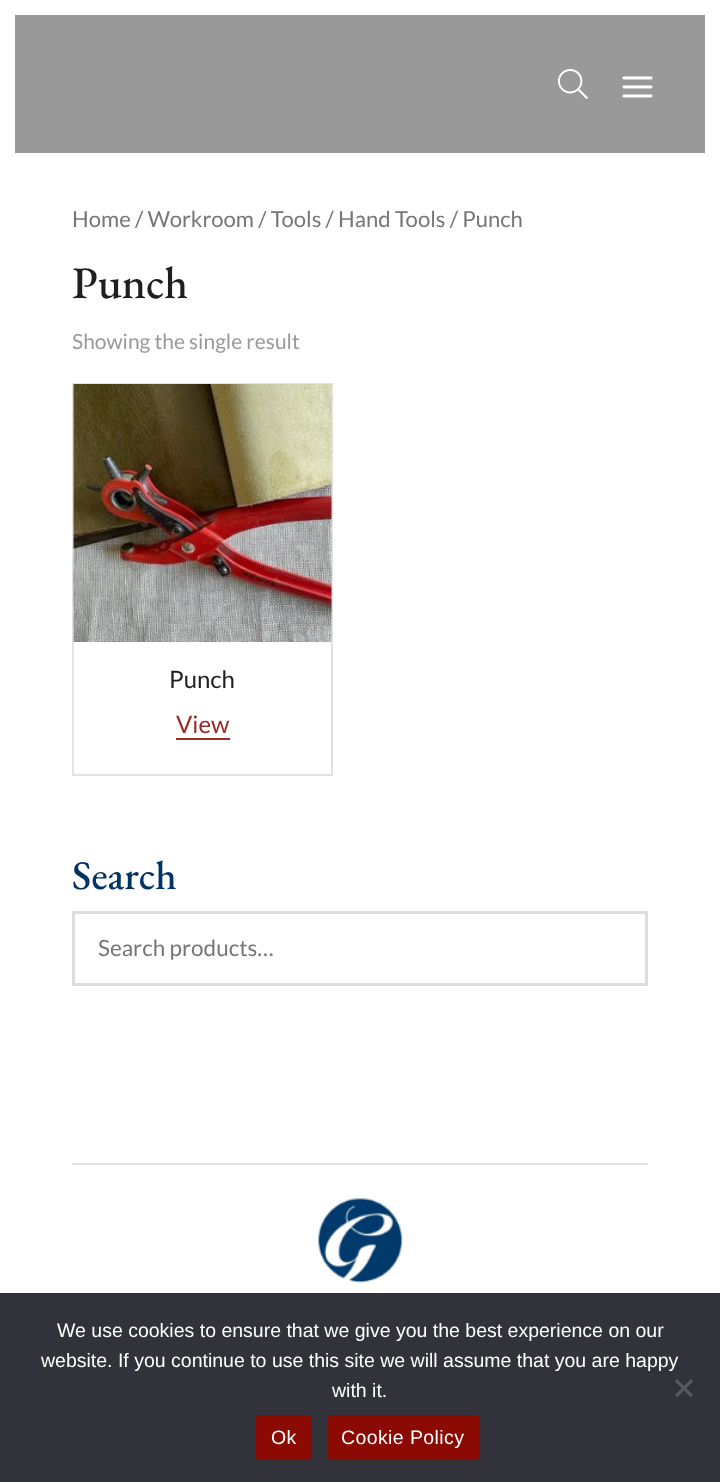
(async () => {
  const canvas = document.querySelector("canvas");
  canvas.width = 720;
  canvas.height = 1482;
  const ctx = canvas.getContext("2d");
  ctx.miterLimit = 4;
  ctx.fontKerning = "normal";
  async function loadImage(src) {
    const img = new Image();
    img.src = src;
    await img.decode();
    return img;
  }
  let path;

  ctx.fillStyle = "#ffffff";
  ctx.fillRect(0, 0, 720, 1482);
  ctx.fillStyle = "#999999";
  ctx.fillRect(15, 15, 690, 138);
  ctx.drawImage(await loadImage("img/1.png"), 558, 69, 30, 30);
  ctx.drawImage(await loadImage("img/2.png"), 622, 76, 31, 22);
  ctx.strokeStyle = "#e2e2e2";
  ctx.lineWidth = 2;
  ctx.strokeRect(73, 384, 259, 391);
  ctx.drawImage(await loadImage("img/3.png"), 73, 384, 259, 258);
  ctx.fillStyle = "#9a2a25";
  ctx.fillRect(176, 738, 54, 2);
  ctx.strokeStyle = "#dddddd";
  ctx.lineWidth = 3;
  ctx.strokeRect(73.5, 912.5, 573, 72);
  ctx.fillStyle = "#e2e2e2";
  ctx.fillRect(72, 1163, 576, 2);
  ctx.drawImage(await loadImage("img/4.png"), 93, 1198, 534, 95);
  ctx.fillStyle = "#32323a";
  ctx.fillRect(0, 1293, 720, 189);
  ctx.fillStyle = "#59595d";
  path = new Path2D("M691 1379L693 1381.5L677 1397.5L675 1395Z");
  ctx.fill(path);
  path = new Path2D("M675 1381.5L677 1379L693 1395L691 1397.5Z");
  ctx.fill(path);
  ctx.fillStyle = "#8b0a04";
  ctx.beginPath();
  ctx.roundRect(255, 1415, 57, 45, 5);
  ctx.fill();
  ctx.beginPath();
  ctx.roundRect(327, 1415, 153, 45, 5);
  ctx.fill();
  ctx.font = "22.1px Lato";
  ctx.fillStyle = "#767676";
  ctx.fillText("Home / Workroom / Tools / Hand Tools / Punch", 72, 227);
  ctx.font = "500 45px EB Garamond";
  ctx.fillStyle = "#1f1f1f";
  ctx.fillText("Punch", 72, 298);
  ctx.font = "21px Lato";
  ctx.fillStyle = "#999999";
  ctx.fillText("Showing the single result", 72, 349);
  ctx.font = "24px Lato";
  ctx.fillStyle = "#1f1f1f";
  ctx.fillText("Punch", 169, 688);
  ctx.fillStyle = "#9a2a25";
  ctx.fillText("View", 176, 733);
  ctx.font = "500 40.5px EB Garamond";
  ctx.fillStyle = "#013365";
  ctx.fillText("Search", 72, 889);
  ctx.font = "22.5px Lato";
  ctx.fillStyle = "#767676";
  ctx.fillText("Search products…", 98, 956);
  ctx.font = "19.5px Liberation Sans";
  ctx.fillStyle = "#ffffff";
  for (const [text, x, y] of [
    ["We use cookies to ensure that we give you the best experience on our", 57, 1337],
    ["website. If you continue to use this site we will assume that you are happy", 41, 1367],
    ["with it.", 332, 1397],
  ]) {
    ctx.fillText(text, x, y);
  }
  ctx.letterSpacing = "0.4px";
  ctx.fillText("Ok", 271, 1444);
  ctx.fillText("Cookie Policy", 341, 1444);
})();
